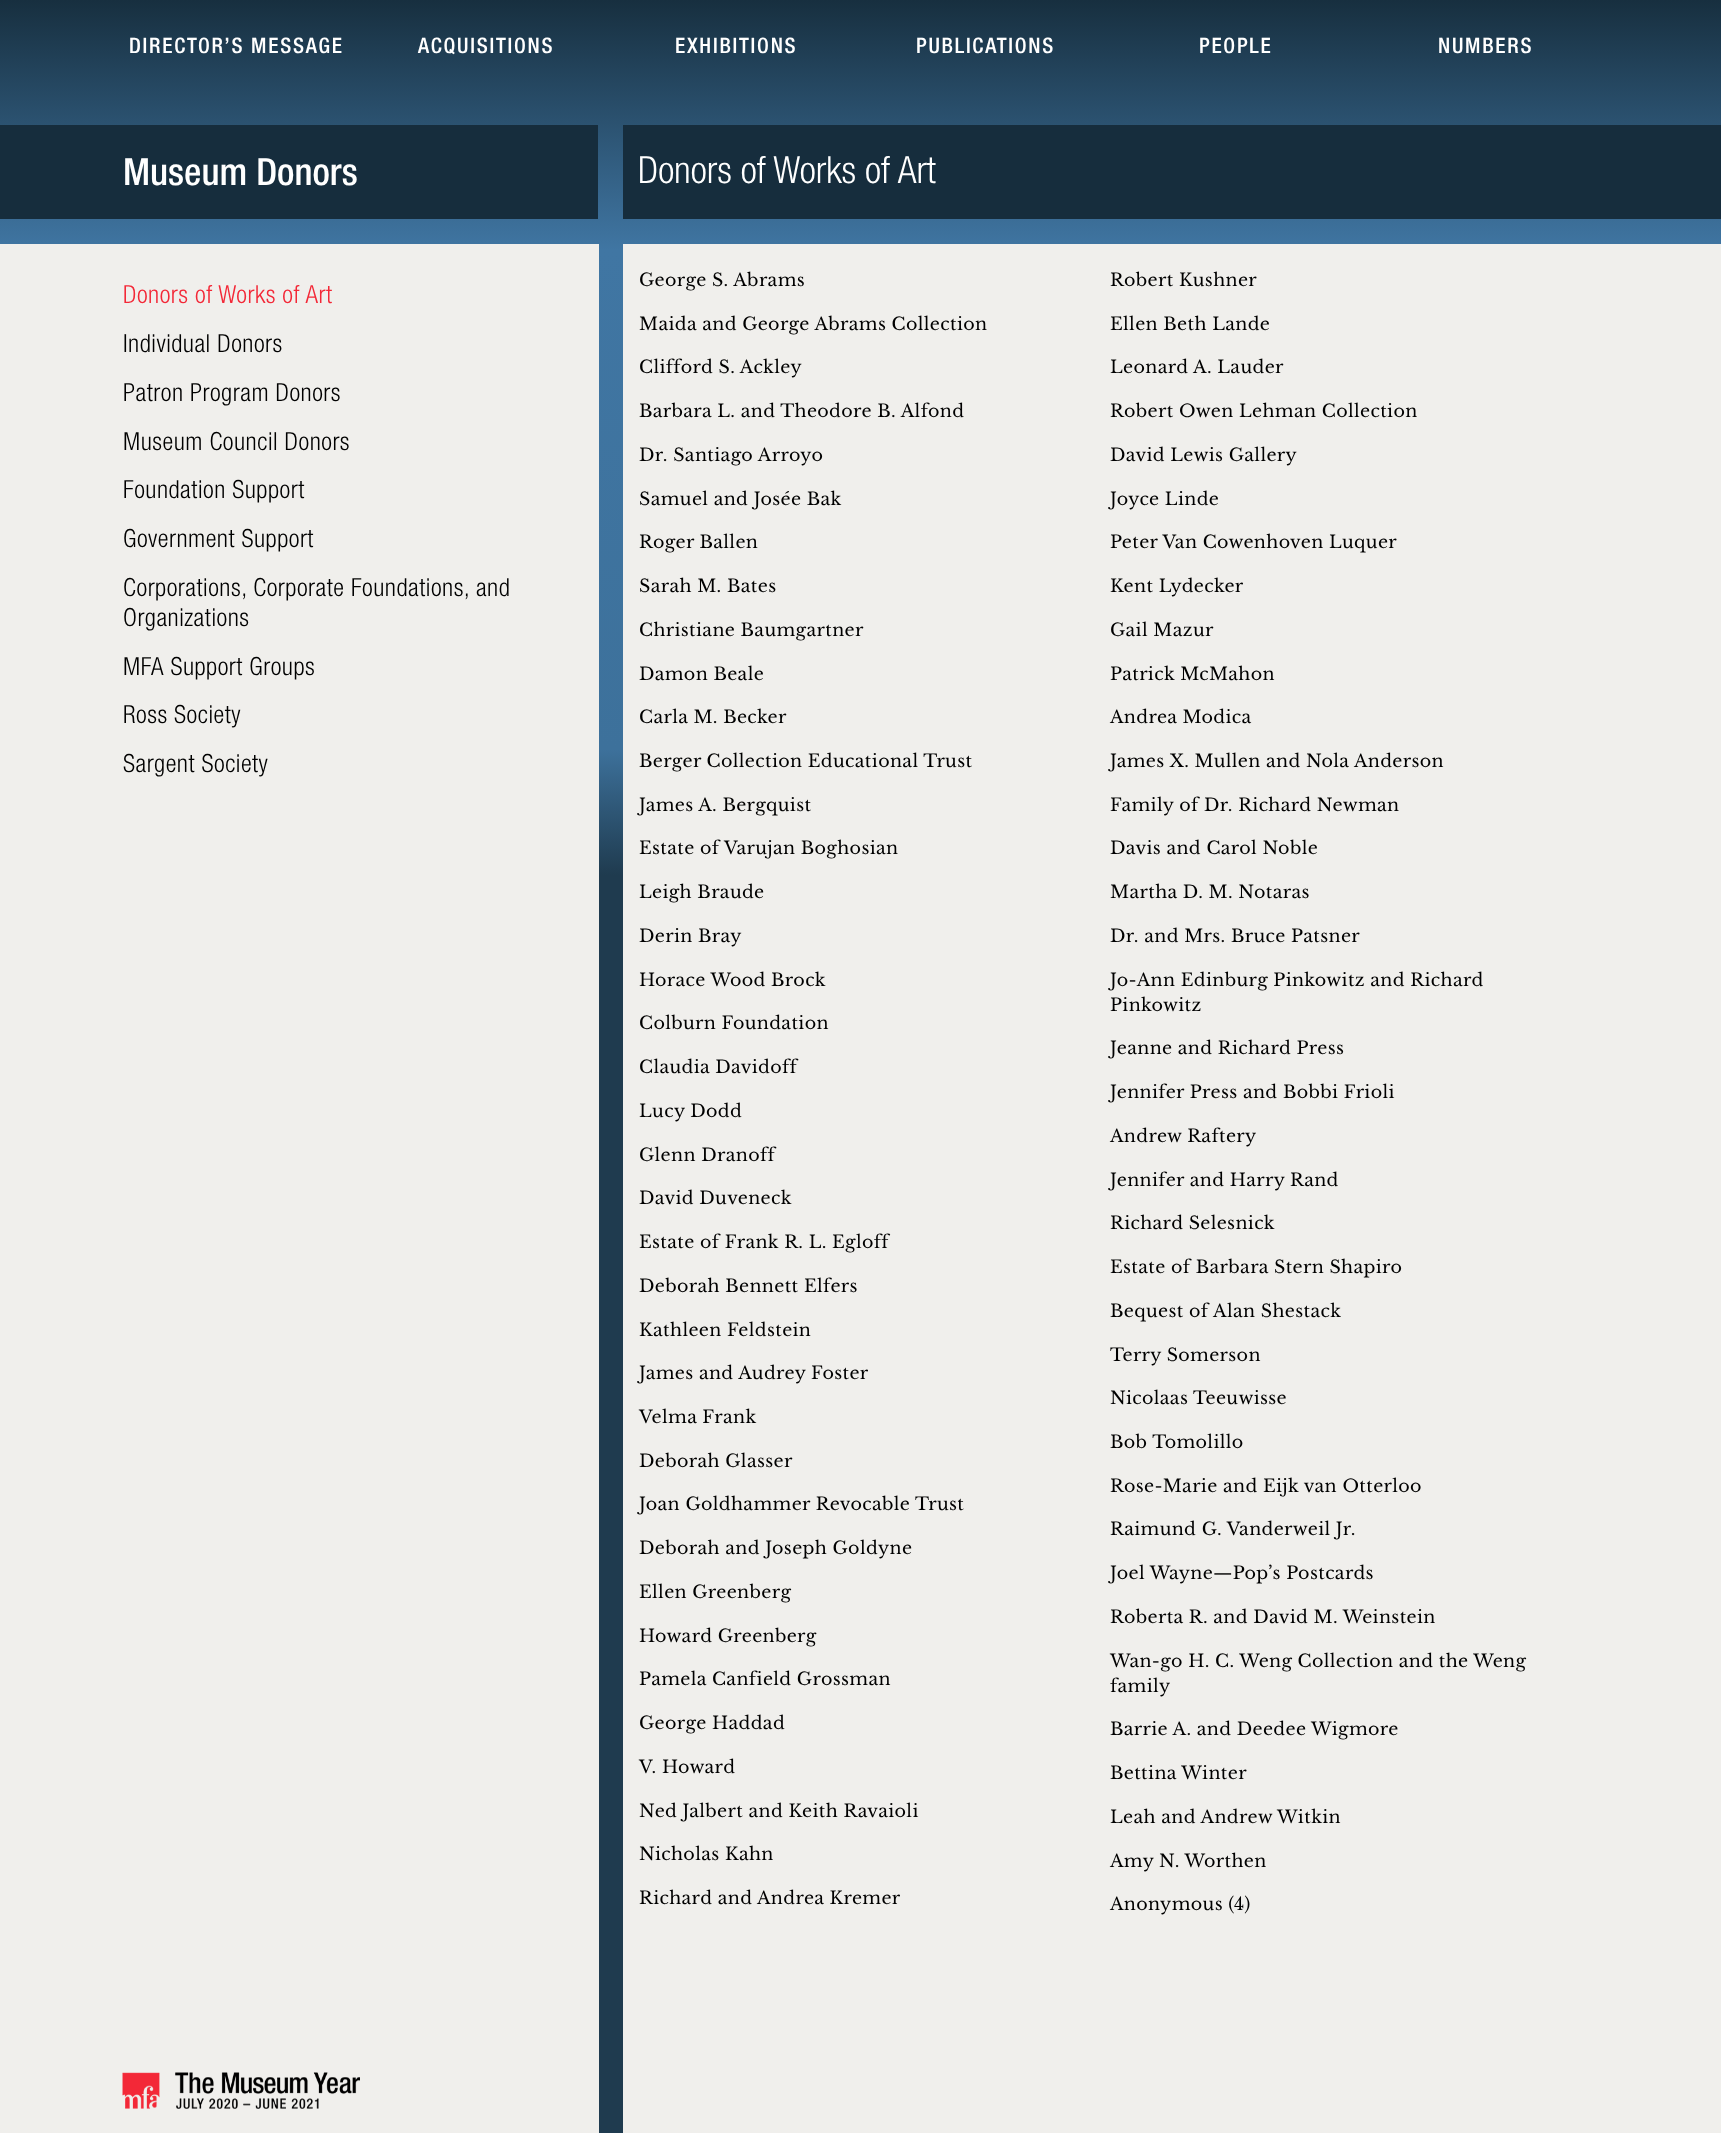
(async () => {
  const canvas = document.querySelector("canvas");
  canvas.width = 1721;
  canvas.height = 2133;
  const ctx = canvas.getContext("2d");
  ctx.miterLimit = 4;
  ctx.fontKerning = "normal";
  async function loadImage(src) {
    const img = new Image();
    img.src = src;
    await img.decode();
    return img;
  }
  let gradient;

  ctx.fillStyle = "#ffffff";
  ctx.fillRect(0, 0, 1721, 2133);
  gradient = ctx.createLinearGradient(861, 0, 861, 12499);
  gradient.addColorStop(0, "#172f3f");
  gradient.addColorStop(0.02, "#4076a3");
  gradient.addColorStop(0.06, "#3d719b");
  gradient.addColorStop(0.07, "#1f3b4f");
  gradient.addColorStop(1, "#1f3b4f");
  ctx.fillStyle = gradient;
  ctx.fillRect(0, 0, 1721, 2133);
  for (const [x, y, w, h, color] of [
    [0, 125, 598, 94, "#162d3d"],
    [0, 244, 599, 1889, "#f0efec"],
    [623, 125, 1098, 94, "#162d3d"],
    [623, 244, 1098, 1889, "#f0efec"],
  ]) {
    ctx.fillStyle = color;
    ctx.fillRect(x, y, w, h);
  }
  ctx.drawImage(await loadImage("img/1.png"), 122, 2072, 238, 37);
  ctx.letterSpacing = "1.75px";
  ctx.font = "21.25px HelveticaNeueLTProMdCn";
  ctx.fillStyle = "#ffffff";
  for (const [text, x, y] of [
    ["DIRECTOR’S MESSAGE", 129, 53],
    ["ACQUISITIONS", 418, 53],
    ["EXHIBITIONS", 675, 53],
    ["PUBLICATIONS", 916, 53],
    ["PEOPLE", 1199, 53],
    ["NUMBERS", 1438, 53],
  ]) {
    ctx.fillText(text, x, y);
  }
  ctx.letterSpacing = "0px";
  ctx.font = "37.5px HelveticaNeueLTProMdCn";
  ctx.fillText("Museum Donors", 123, 185);
  ctx.letterSpacing = "0.5px";
  ctx.font = "25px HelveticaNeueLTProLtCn";
  ctx.fillStyle = "#f32837";
  ctx.fillText("Donors of Works of Art", 123, 303);
  ctx.fillStyle = "#000000";
  for (const [text, x, y] of [
    ["Individual Donors", 123, 352],
    ["Patron Program Donors", 123, 401],
    ["Museum Council Donors", 123, 450],
    ["Foundation Support", 123, 498],
    ["Government Support", 123, 547],
    ["Corporations, Corporate Foundations, and", 123, 596],
    ["Organizations", 123, 626],
    ["MFA Support Groups", 123, 675],
    ["Ross Society", 123, 723],
    ["Sargent Society", 123, 772],
  ]) {
    ctx.fillText(text, x, y);
  }
  ctx.letterSpacing = "0px";
  ctx.font = "37.5px HelveticaNeueLTProLtCn";
  ctx.fillStyle = "#ffffff";
  ctx.fillText("Donors of Works of Art", 638, 183);
  ctx.letterSpacing = "0.35px";
  ctx.font = "17.5px Libre Baskerville";
  ctx.fillStyle = "#000000";
  for (const [text, x, y] of [
    ["George S. Abrams", 639, 286],
    ["Maida and George Abrams Collection", 639, 330],
    ["Clifford S. Ackley", 639, 373],
    ["Barbara L. and Theodore B. Alfond", 639, 417],
    ["Dr. Santiago Arroyo", 639, 461],
    ["Samuel and Josée Bak", 639, 505],
    ["Roger Ballen", 639, 548],
    ["Sarah M. Bates", 639, 592],
    ["Christiane Baumgartner", 639, 636],
    ["Damon Beale", 639, 680],
    ["Carla M. Becker", 639, 723],
    ["Berger Collection Educational Trust", 639, 767],
    ["James A. Bergquist", 639, 811],
    ["Estate of Varujan Boghosian", 639, 854],
    ["Leigh Braude", 639, 898],
    ["Derin Bray", 639, 942],
    ["Horace Wood Brock", 639, 986],
    ["Colburn Foundation", 639, 1029],
    ["Claudia Davidoff", 639, 1073],
    ["Lucy Dodd", 639, 1117],
    ["Glenn Dranoff", 639, 1161],
    ["David Duveneck", 639, 1204],
    ["Estate of Frank R. L. Egloff", 639, 1248],
    ["Deborah Bennett Elfers", 639, 1292],
    ["Kathleen Feldstein", 639, 1336],
    ["James and Audrey Foster", 639, 1379],
    ["Velma Frank", 639, 1423],
    ["Deborah Glasser", 639, 1467],
    ["Joan Goldhammer Revocable Trust", 639, 1510],
    ["Deborah and Joseph Goldyne", 639, 1554],
    ["Ellen Greenberg", 639, 1598],
    ["Howard Greenberg", 639, 1642],
    ["Pamela Canfield Grossman", 639, 1685],
    ["George Haddad", 639, 1729],
    ["V. Howard", 639, 1773],
    ["Ned Jalbert and Keith Ravaioli", 639, 1817],
    ["Nicholas Kahn", 639, 1860],
    ["Richard and Andrea Kremer", 639, 1904],
    ["Robert Kushner", 1110, 286],
    ["Ellen Beth Lande", 1110, 330],
    ["Leonard A. Lauder", 1110, 373],
    ["Robert Owen Lehman Collection", 1110, 417],
    ["David Lewis Gallery", 1110, 461],
    ["Joyce Linde", 1110, 505],
    ["Peter Van Cowenhoven Luquer", 1110, 548],
    ["Kent Lydecker", 1110, 592],
    ["Gail Mazur", 1110, 636],
    ["Patrick McMahon", 1110, 680],
    ["Andrea Modica", 1110, 723],
    ["James X. Mullen and Nola Anderson", 1110, 767],
    ["Family of Dr. Richard Newman", 1110, 811],
    ["Davis and Carol Noble", 1110, 854],
    ["Martha D. M. Notaras", 1110, 898],
    ["Dr. and Mrs. Bruce Patsner", 1110, 942],
    ["Jo-Ann Edinburg Pinkowitz and Richard", 1110, 986],
    ["Pinkowitz", 1110, 1011],
    ["Jeanne and Richard Press", 1110, 1054],
    ["Jennifer Press and Bobbi Frioli", 1110, 1098],
    ["Andrew Raftery", 1110, 1142],
    ["Jennifer and Harry Rand", 1110, 1186],
    ["Richard Selesnick", 1110, 1229],
    ["Estate of Barbara Stern Shapiro", 1110, 1273],
    ["Bequest of Alan Shestack", 1110, 1317],
    ["Terry Somerson", 1110, 1361],
    ["Nicolaas Teeuwisse", 1110, 1404],
    ["Bob Tomolillo", 1110, 1448],
    ["Rose-Marie and Eijk van Otterloo", 1110, 1492],
    ["Raimund G. Vanderweil Jr.", 1110, 1535],
    ["Joel Wayne—Pop’s Postcards", 1110, 1579],
    ["Roberta R. and David M. Weinstein", 1110, 1623],
    ["Wan-go H. C. Weng Collection and the Weng", 1110, 1667],
    ["family", 1110, 1692],
    ["Barrie A. and Deedee Wigmore", 1110, 1735],
    ["Bettina Winter", 1110, 1779],
    ["Leah and Andrew Witkin", 1110, 1823],
    ["Amy N. Worthen", 1110, 1867],
    ["Anonymous (4)", 1110, 1910],
  ]) {
    ctx.fillText(text, x, y);
  }
})();
